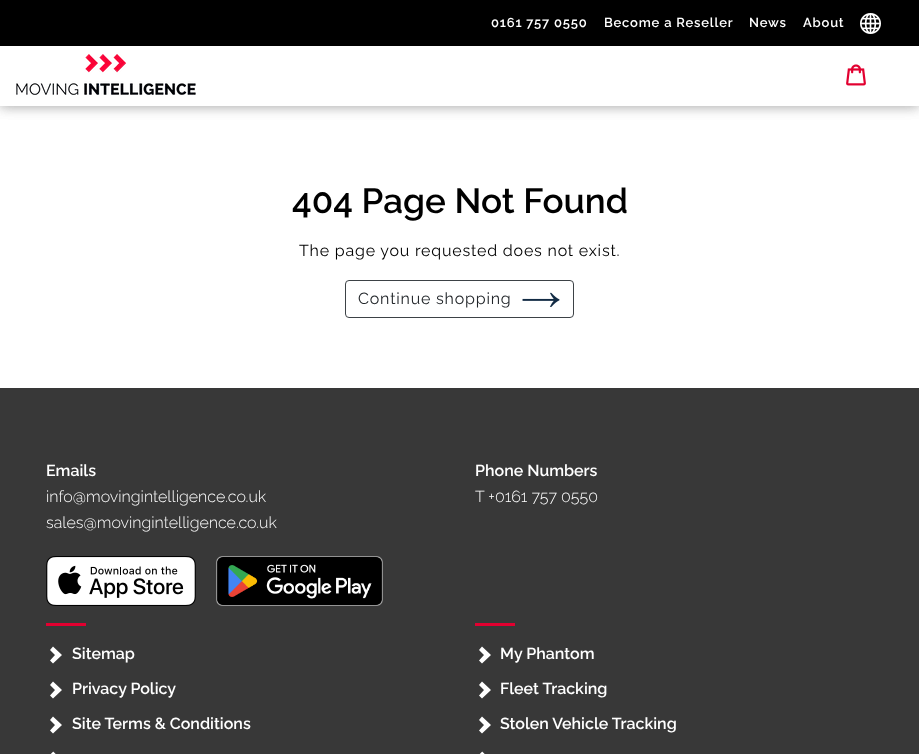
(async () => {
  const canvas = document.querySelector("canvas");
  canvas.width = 919;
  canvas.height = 754;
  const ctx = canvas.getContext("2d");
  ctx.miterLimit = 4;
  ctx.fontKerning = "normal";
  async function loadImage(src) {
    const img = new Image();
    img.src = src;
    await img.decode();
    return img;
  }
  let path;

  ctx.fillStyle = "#ffffff";
  ctx.fillRect(0, 0, 919, 754);
  ctx.fillStyle = "#000000";
  ctx.fillRect(0, 0, 919, 46);
  ctx.drawImage(await loadImage("img/1.png"), 860, 13, 21, 21);
  ctx.fillStyle = "rgba(0, 0, 0, 0.2)";
  ctx.filter = "blur(6.5px)";
  ctx.beginPath();
  ctx.rect(0, 46, 919, 60);
  ctx.fill();
  ctx.filter = "none";
  ctx.filter = "blur(6.5px)";
  ctx.beginPath();
  ctx.rect(0, 46, 919, 60);
  ctx.fill();
  ctx.filter = "none";
  ctx.fillStyle = "#ffffff";
  ctx.fillRect(0, 46, 919, 60);
  ctx.drawImage(await loadImage("img/2.png"), 16, 54, 180, 41);
  ctx.drawImage(await loadImage("img/3.png"), 846, 64, 20, 22);
  ctx.beginPath();
  ctx.roundRect(345.5, 280.5, 228, 37, 3.5);
  ctx.strokeStyle = "#3d4246";
  ctx.stroke();
  ctx.drawImage(await loadImage("img/4.png"), 522, 292, 38, 15);
  ctx.fillStyle = "#383838";
  ctx.fillRect(0, 388, 919, 366);
  ctx.drawImage(await loadImage("img/5.png"), 46, 556, 150, 50);
  ctx.drawImage(await loadImage("img/6.png"), 216, 556, 167, 50);
  ctx.fillStyle = "#e20030";
  ctx.fillRect(46, 623, 40, 3);
  ctx.fillStyle = "#ffffff";
  path = new Path2D("M53 646.5L50 650L55 655L50 660.5L53 663.5L62 655ZM53 681.5L50 685L55 690L50 695.5L53 698.5L62 690Z");
  ctx.fill(path);
  path = new Path2D("M53 716.5L50 720L55 725L50 730.5L53 733.5L62 725Z");
  ctx.fill(path);
  ctx.drawImage(await loadImage("img/7.png"), 50, 751, 6, 3);
  ctx.fillStyle = "#e20030";
  ctx.fillRect(475, 623, 40, 3);
  ctx.fillStyle = "#ffffff";
  path = new Path2D("M482 646.5L479 650L484 655L479 660.5L482 663.5L491 655ZM482 681.5L479 685L484 690L479 695.5L482 698.5L491 690Z");
  ctx.fill(path);
  path = new Path2D("M482 716.5L479 720L484 725L479 730.5L482 733.5L491 725Z");
  ctx.fill(path);
  ctx.drawImage(await loadImage("img/7.png"), 479, 751, 6, 3);
  ctx.letterSpacing = "0.8px";
  ctx.font = "600 13px Raleway";
  for (const [text, x, y] of [
    ["0161 757 0550", 491, 27],
    ["Become a Reseller", 604, 27],
    ["News", 749, 27],
    ["About", 803, 27],
  ]) {
    ctx.fillText(text, x, y);
  }
  ctx.letterSpacing = "0px";
  ctx.font = "600 35px Raleway";
  ctx.fillStyle = "#000000";
  ctx.fillText("404 Page Not Found", 292, 213);
  ctx.letterSpacing = "0.8px";
  ctx.font = "16px Raleway";
  ctx.fillText("The page you requested does not exist.", 299, 256);
  ctx.fillStyle = "#212529";
  ctx.fillText("Continue shopping", 358, 304);
  ctx.letterSpacing = "0px";
  ctx.font = "600 16px Raleway";
  ctx.fillStyle = "#ffffff";
  ctx.fillText("Emails", 46, 476);
  ctx.font = "300 16px Raleway";
  ctx.fillText("info@movingintelligence.co.uk", 46, 502);
  ctx.fillText("sales@movingintelligence.co.uk", 46, 528);
  ctx.font = "600 16px Raleway";
  ctx.fillText("Phone Numbers", 475, 476);
  ctx.font = "300 16px Raleway";
  ctx.fillText("T +0161 757 0550", 475, 502);
  ctx.font = "600 16px Raleway";
  for (const [text, x, y] of [
    ["Sitemap", 72, 659],
    ["Privacy Policy", 72, 694],
    ["Site Terms & Conditions", 72, 729],
    ["My Phantom", 500, 659],
    ["Fleet Tracking", 500, 694],
    ["Stolen Vehicle Tracking", 500, 729],
  ]) {
    ctx.fillText(text, x, y);
  }
})();
